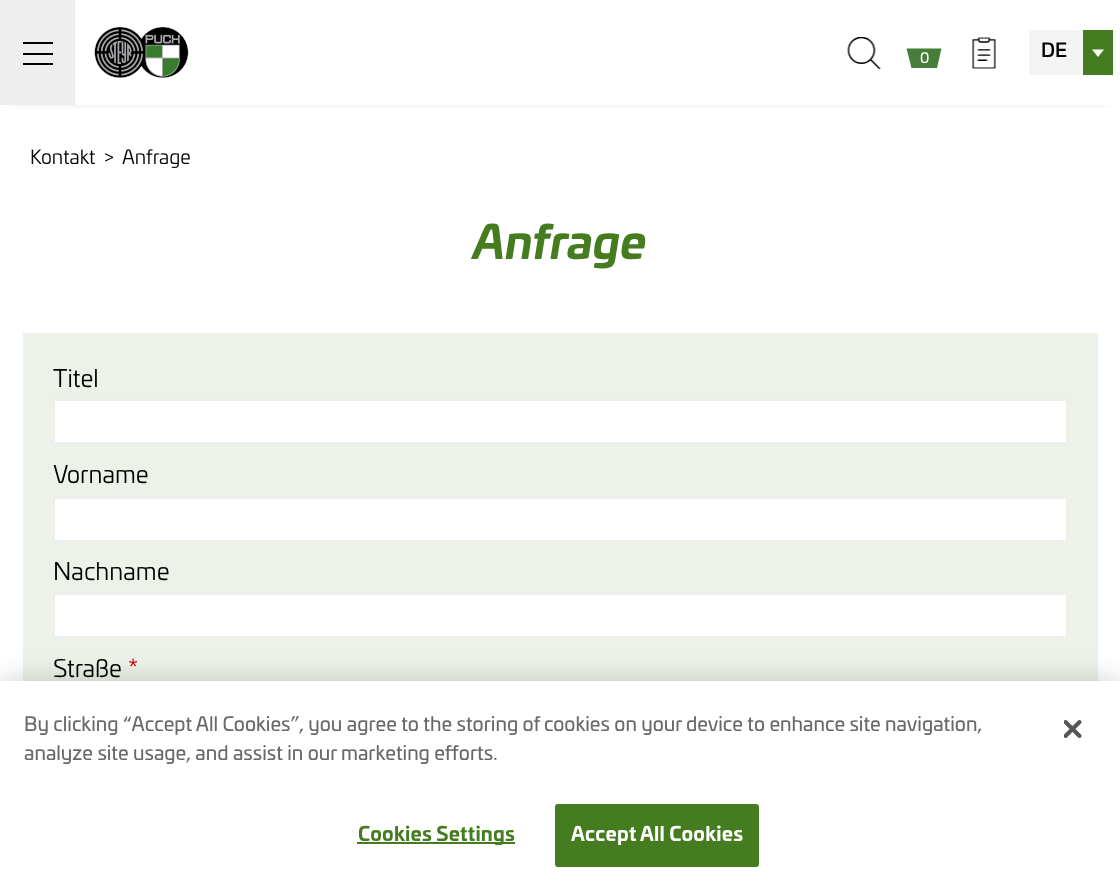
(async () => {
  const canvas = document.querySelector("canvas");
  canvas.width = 1120;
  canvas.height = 890;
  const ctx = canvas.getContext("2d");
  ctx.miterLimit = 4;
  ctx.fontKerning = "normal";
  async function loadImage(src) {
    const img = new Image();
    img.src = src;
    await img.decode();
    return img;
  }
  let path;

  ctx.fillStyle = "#ffffff";
  ctx.fillRect(0, 0, 1120, 890);
  ctx.save();
  ctx.beginPath();
  ctx.rect(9, 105, 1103, 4);
  ctx.clip();
  ctx.fillStyle = "#333333";
  ctx.filter = "blur(8px)";
  ctx.beginPath();
  ctx.rect(12, 12, 1097, 81);
  ctx.fill();
  ctx.filter = "none";
  ctx.restore();
  for (const [x, y, w, h, color] of [
    [0, 0, 75, 105, "#eeeeee"],
    [23, 42, 30, 2, "#000000"],
    [23, 53, 30, 2, "#000000"],
    [23, 63, 30, 2, "#000000"],
  ]) {
    ctx.fillStyle = color;
    ctx.fillRect(x, y, w, h);
  }
  ctx.drawImage(await loadImage("img/1.png"), 94, 26, 95, 52);
  ctx.drawImage(await loadImage("img/2.png"), 847, 37, 34, 32);
  ctx.fillStyle = "#477d3b";
  path = new Path2D("M937 68H911.5L906.5 48.5H941.5ZM933.5 48.5L930 38M915 48.5L918 38");
  ctx.fill(path);
  ctx.drawImage(await loadImage("img/3.png"), 972, 37, 24, 32);
  ctx.fillStyle = "#f4f4f4";
  ctx.fillRect(1029, 30, 54, 45);
  ctx.fillStyle = "#457c1f";
  ctx.fillRect(1083, 30, 30, 45);
  ctx.fillStyle = "#ffffff";
  path = new Path2D("M1092 49.5H1104L1098 57Z");
  ctx.fill(path);
  ctx.fillStyle = "#ecf2e8";
  ctx.fillRect(23, 333, 1075, 348);
  ctx.fillStyle = "#ffffff";
  ctx.beginPath();
  ctx.rect(54, 400, 1013, 43);
  ctx.fill();
  ctx.strokeStyle = "#eeeeee";
  ctx.lineWidth = 2;
  ctx.stroke();
  ctx.beginPath();
  ctx.rect(54, 498, 1013, 43);
  ctx.fill();
  ctx.stroke();
  ctx.beginPath();
  ctx.rect(54, 594, 1013, 43);
  ctx.fill();
  ctx.stroke();
  ctx.fillStyle = "rgba(0, 0, 0, 0.2)";
  ctx.filter = "blur(13.5px)";
  ctx.beginPath();
  ctx.rect(0, 681, 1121, 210);
  ctx.fill();
  ctx.filter = "none";
  ctx.fillStyle = "#ffffff";
  ctx.fillRect(0, 681, 1120, 209);
  ctx.fillStyle = "#457c1f";
  ctx.fillRect(357, 842, 158, 2);
  ctx.beginPath();
  ctx.roundRect(556, 805, 202, 61, 2);
  ctx.fill();
  ctx.strokeStyle = "#457c1f";
  ctx.stroke();
  ctx.drawImage(await loadImage("img/4.png"), 1064, 720, 18, 18);
  ctx.font = "14px 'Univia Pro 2'";
  ctx.fillStyle = "#ffffff";
  ctx.fillText("0", 920, 63);
  ctx.font = "500 19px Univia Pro";
  ctx.fillStyle = "#000000";
  ctx.fillText("DE", 1041, 57);
  ctx.font = "19.5px Univia Pro";
  ctx.fillText("Kontakt", 30, 164);
  ctx.font = "18px Univia Pro";
  ctx.fillText(">", 104, 164);
  ctx.font = "19.5px Univia Pro";
  ctx.fillText("Anfrage", 122, 164);
  ctx.font = "italic bold 45.5px Univia Pro";
  ctx.fillStyle = "#457c1f";
  ctx.fillText("Anfrage", 473, 259);
  ctx.font = "24px Univia Pro";
  ctx.fillStyle = "#000000";
  for (const [text, x, y] of [
    ["Titel", 53, 387],
    ["Vorname", 53, 483],
    ["Nachname", 53, 580],
    ["Straße", 53, 677],
  ]) {
    ctx.fillText(text, x, y);
  }
  ctx.fillStyle = "#cc0000";
  ctx.fillText("*", 128, 677);
  ctx.font = "19.5px 'Univia Pro 2'";
  ctx.fillStyle = "#696969";
  ctx.fillText("By clicking “Accept All Cookies”, you agree to the storing of cookies on your device to enhance site navigation,", 24, 731);
  ctx.fillText("analyze site usage, and assist in our marketing efforts.", 24, 760);
  ctx.letterSpacing = "0.25px";
  ctx.font = "bold 19.5px Univia Pro";
  ctx.fillStyle = "#457c1f";
  ctx.fillText("Cookies Settings", 358, 841);
  ctx.fillStyle = "#ffffff";
  ctx.fillText("Accept All Cookies", 571, 841);
})();
